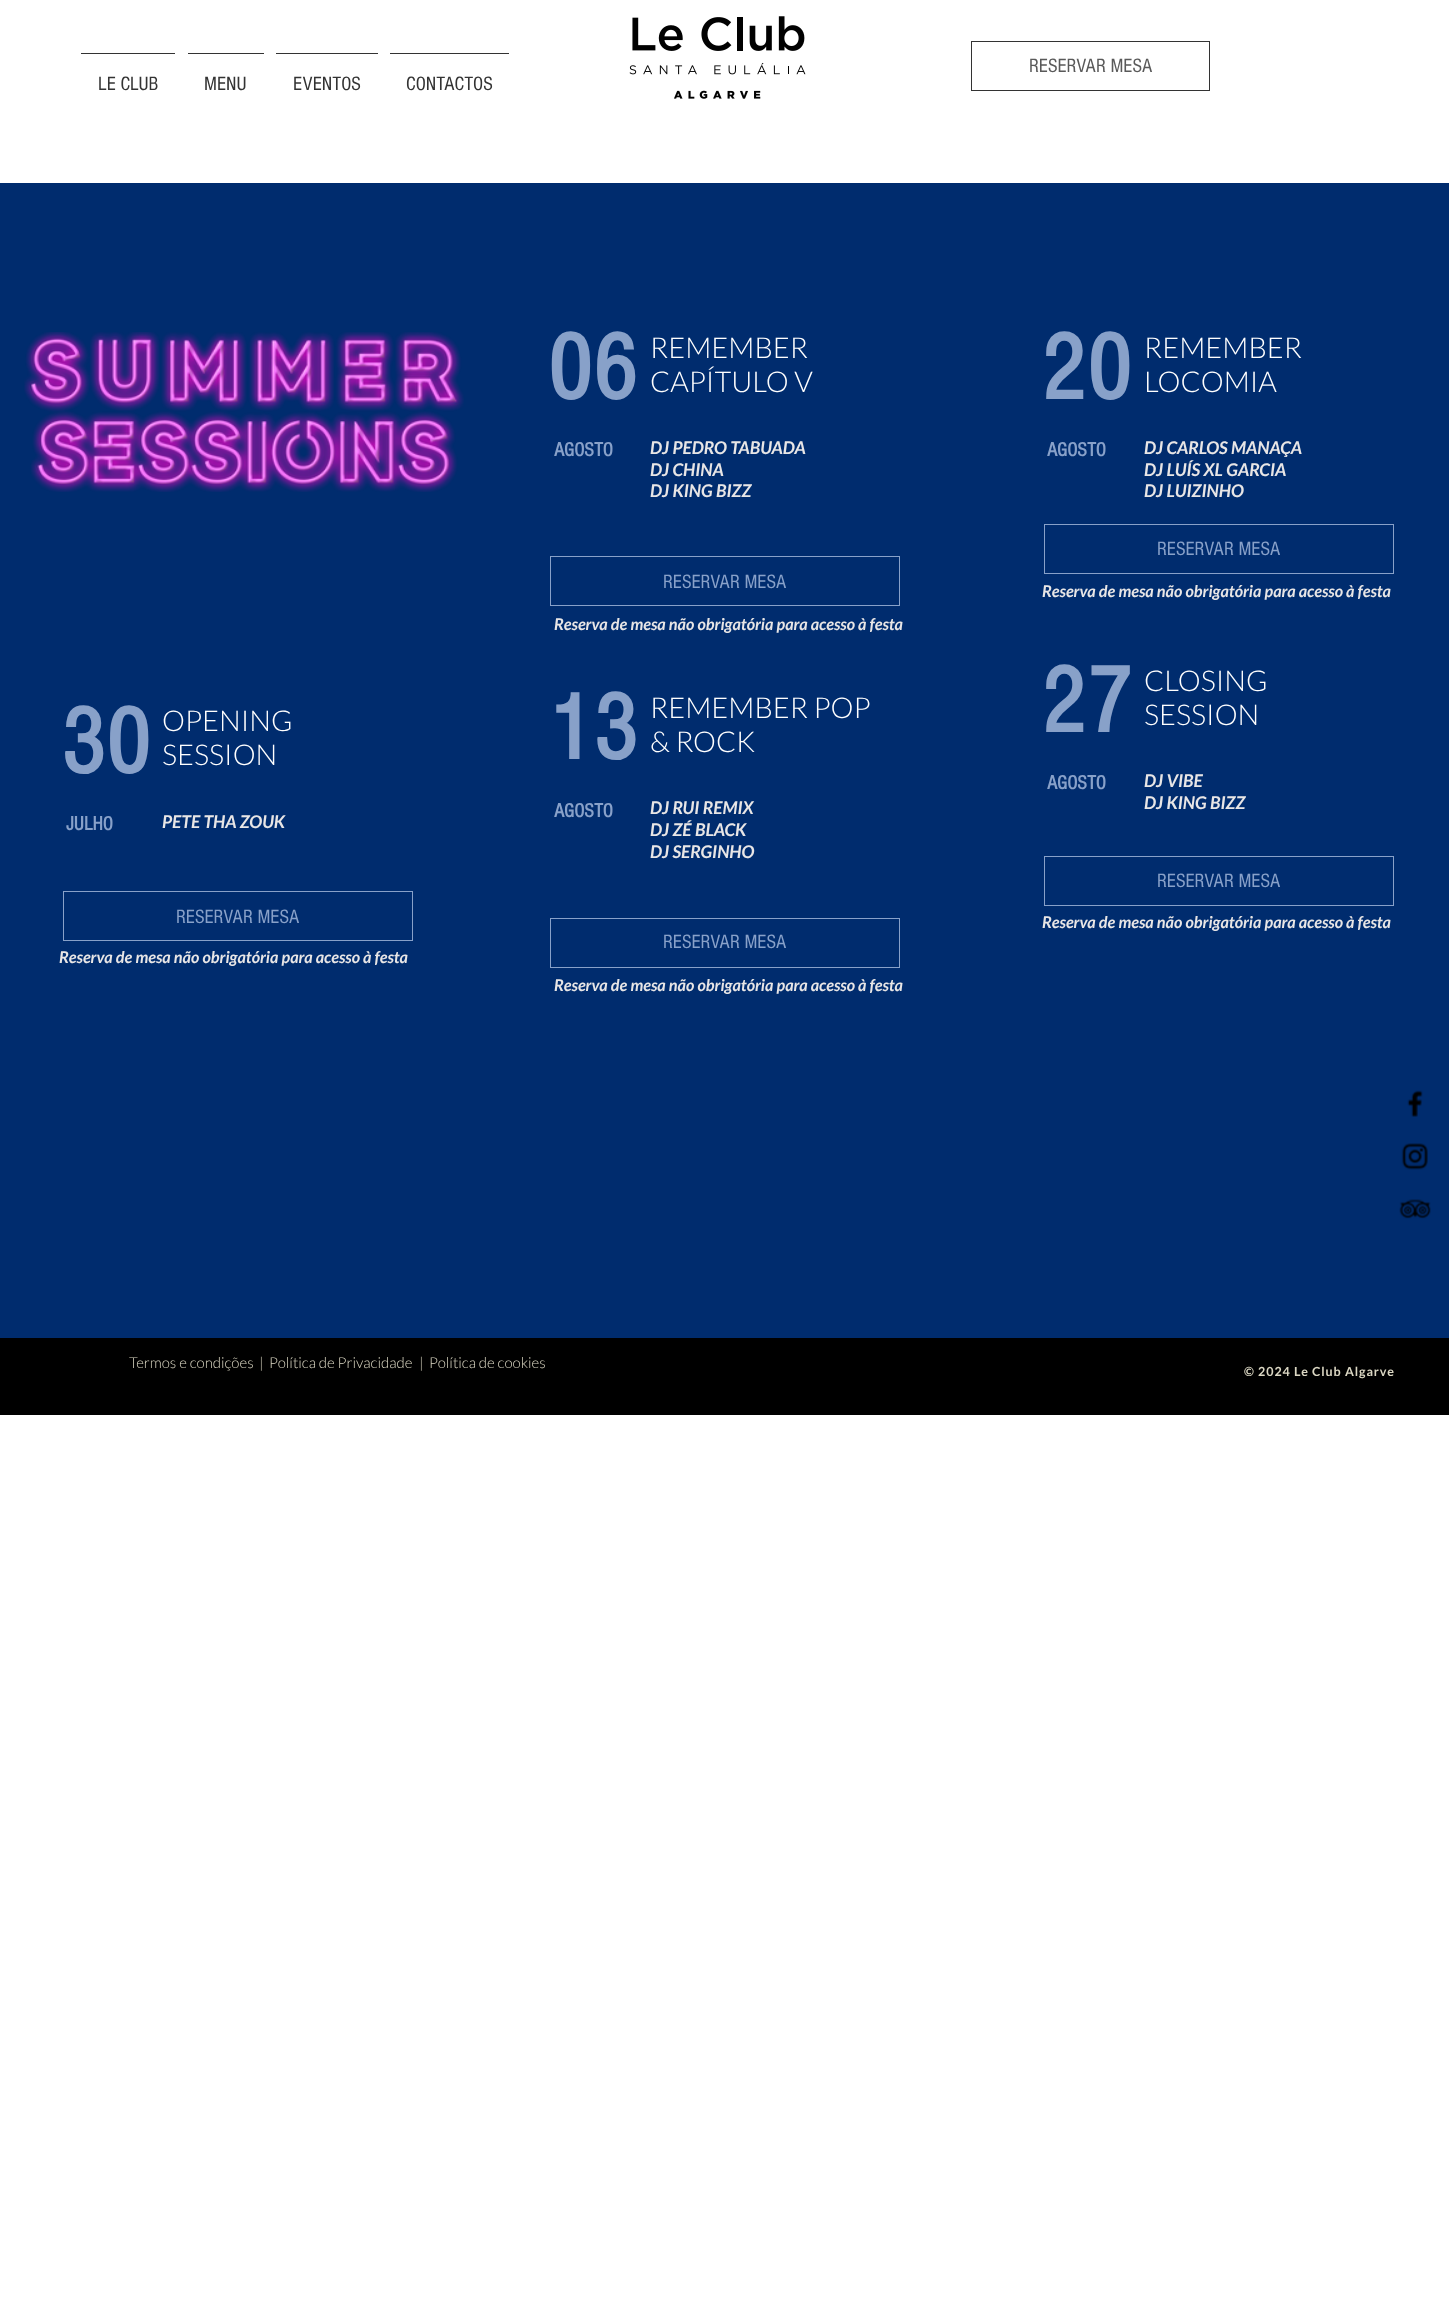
(async () => {
  const canvas = document.querySelector("canvas");
  canvas.width = 1449;
  canvas.height = 2312;
  const ctx = canvas.getContext("2d");
  ctx.miterLimit = 4;
  ctx.fontKerning = "normal";
  async function loadImage(src) {
    const img = new Image();
    img.src = src;
    await img.decode();
    return img;
  }

  ctx.fillStyle = "#ffffff";
  ctx.fillRect(0, 0, 1449, 2312);
  ctx.drawImage(await loadImage("img/1.png"), 629, 16, 177, 83);
  ctx.strokeStyle = "#333333";
  ctx.strokeRect(971.5, 41.5, 238, 49);
  for (const [x, y, w, h, color] of [
    [81, 53, 94, 1, "#333333"],
    [188, 53, 76, 1, "#333333"],
    [276, 53, 102, 1, "#333333"],
    [390, 53, 119, 1, "#333333"],
    [0, 183, 1449, 1155, "#002c6e"],
  ]) {
    ctx.fillStyle = color;
    ctx.fillRect(x, y, w, h);
  }
  ctx.drawImage(await loadImage("img/2.png"), 24, 332, 440, 160);
  ctx.strokeStyle = "#88a1c9";
  ctx.strokeRect(63.5, 891.5, 349, 49);
  ctx.strokeRect(550.5, 556.5, 349, 49);
  ctx.strokeRect(550.5, 918.5, 349, 49);
  ctx.strokeRect(1044.5, 524.5, 349, 49);
  ctx.strokeRect(1044.5, 856.5, 349, 49);
  ctx.drawImage(await loadImage("img/3.png"), 1407, 1090, 16, 27);
  ctx.drawImage(await loadImage("img/4.png"), 1401, 1143, 27, 27);
  ctx.drawImage(await loadImage("img/5.png"), 1399, 1199, 32, 20);
  ctx.fillStyle = "#000000";
  ctx.fillRect(0, 1338, 1449, 77);
  ctx.font = "20px 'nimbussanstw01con'";
  ctx.fillStyle = "#595959";
  ctx.fillText("RESERVAR MESA", 1029, 72);
  ctx.fillStyle = "#333333";
  for (const [text, x, y] of [
    ["LE CLUB", 98, 90],
    ["MENU", 204, 90],
    ["EVENTOS", 293, 90],
    ["CONTACTOS", 406, 90],
  ]) {
    ctx.fillText(text, x, y);
  }
  ctx.font = "bold 96px 'nimbussanstw01con'";
  ctx.fillStyle = "#88a1c9";
  ctx.fillText("30", 60, 773);
  ctx.font = "300 28.75px Lato";
  ctx.fillStyle = "#ffffff";
  ctx.fillText("OPENING", 162, 731);
  ctx.fillText("SESSION", 162, 765);
  ctx.font = "bold 20px 'nimbussanstw01con'";
  ctx.fillStyle = "#88a1c9";
  ctx.fillText("JULHO", 66, 830);
  ctx.font = "italic bold 17.5px Lato";
  ctx.fillStyle = "#e8e6e6";
  ctx.fillText("PETE THA ZOUK", 162, 828);
  ctx.font = "20px 'nimbussanstw01con'";
  ctx.fillStyle = "#88a1c9";
  ctx.fillText("RESERVAR MESA", 176, 923);
  ctx.font = "italic bold 16.25px Lato";
  ctx.fillStyle = "#e8e6e6";
  ctx.fillText("Reserva de mesa não obrigatória para acesso à festa", 59, 963);
  ctx.font = "bold 96px 'nimbussanstw01con'";
  ctx.fillStyle = "#88a1c9";
  ctx.fillText("06", 547, 399);
  ctx.font = "300 28.75px Lato";
  ctx.fillStyle = "#ffffff";
  ctx.fillText("REMEMBER", 650, 358);
  ctx.fillText("CAPÍTULO V", 650, 392);
  ctx.font = "bold 20px 'nimbussanstw01con'";
  ctx.fillStyle = "#88a1c9";
  ctx.fillText("AGOSTO", 554, 456);
  ctx.font = "italic bold 17.5px Lato";
  ctx.fillStyle = "#e8e6e6";
  for (const [text, x, y] of [
    ["DJ PEDRO TABUADA", 650, 454],
    ["DJ CHINA", 650, 476],
    ["DJ KING BIZZ", 650, 497],
  ]) {
    ctx.fillText(text, x, y);
  }
  ctx.font = "20px 'nimbussanstw01con'";
  ctx.fillStyle = "#88a1c9";
  ctx.fillText("RESERVAR MESA", 663, 588);
  ctx.font = "italic bold 16.25px Lato";
  ctx.fillStyle = "#e8e6e6";
  ctx.fillText("Reserva de mesa não obrigatória para acesso à festa", 554, 630);
  ctx.font = "bold 96px 'nimbussanstw01con'";
  ctx.fillStyle = "#88a1c9";
  ctx.fillText("13", 547, 759);
  ctx.font = "300 28.75px Lato";
  ctx.fillStyle = "#ffffff";
  ctx.fillText("REMEMBER POP", 650, 718);
  ctx.fillText("& ROCK", 650, 752);
  ctx.font = "bold 20px 'nimbussanstw01con'";
  ctx.fillStyle = "#88a1c9";
  ctx.fillText("AGOSTO", 554, 817);
  ctx.font = "italic bold 17.5px Lato";
  ctx.fillStyle = "#e8e6e6";
  for (const [text, x, y] of [
    ["DJ RUI REMIX", 650, 814],
    ["DJ ZÉ BLACK", 650, 836],
    ["DJ SERGINHO", 650, 858],
  ]) {
    ctx.fillText(text, x, y);
  }
  ctx.font = "20px 'nimbussanstw01con'";
  ctx.fillStyle = "#88a1c9";
  ctx.fillText("RESERVAR MESA", 663, 948);
  ctx.font = "italic bold 16.25px Lato";
  ctx.fillStyle = "#e8e6e6";
  ctx.fillText("Reserva de mesa não obrigatória para acesso à festa", 554, 991);
  ctx.font = "bold 96px 'nimbussanstw01con'";
  ctx.fillStyle = "#88a1c9";
  ctx.fillText("20", 1041, 399);
  ctx.font = "300 28.75px Lato";
  ctx.fillStyle = "#ffffff";
  ctx.fillText("REMEMBER", 1144, 358);
  ctx.fillText("LOCOMIA", 1144, 392);
  ctx.font = "bold 20px 'nimbussanstw01con'";
  ctx.fillStyle = "#88a1c9";
  ctx.fillText("AGOSTO", 1047, 456);
  ctx.font = "italic bold 17.5px Lato";
  ctx.fillStyle = "#e8e6e6";
  for (const [text, x, y] of [
    ["DJ CARLOS MANAÇA", 1144, 454],
    ["DJ LUÍS XL GARCIA", 1144, 476],
    ["DJ LUIZINHO", 1144, 497],
  ]) {
    ctx.fillText(text, x, y);
  }
  ctx.font = "20px 'nimbussanstw01con'";
  ctx.fillStyle = "#88a1c9";
  ctx.fillText("RESERVAR MESA", 1157, 555);
  ctx.font = "italic bold 16.25px Lato";
  ctx.fillStyle = "#e8e6e6";
  ctx.fillText("Reserva de mesa não obrigatória para acesso à festa", 1042, 597);
  ctx.font = "bold 96px 'nimbussanstw01con'";
  ctx.fillStyle = "#88a1c9";
  ctx.fillText("27", 1041, 732);
  ctx.font = "300 28.75px Lato";
  ctx.fillStyle = "#ffffff";
  ctx.fillText("CLOSING", 1144, 691);
  ctx.fillText("SESSION", 1144, 725);
  ctx.font = "bold 20px 'nimbussanstw01con'";
  ctx.fillStyle = "#88a1c9";
  ctx.fillText("AGOSTO", 1047, 789);
  ctx.font = "italic bold 17.5px Lato";
  ctx.fillStyle = "#e8e6e6";
  ctx.fillText("DJ VIBE", 1144, 787);
  ctx.fillText("DJ KING BIZZ", 1144, 809);
  ctx.font = "20px 'nimbussanstw01con'";
  ctx.fillStyle = "#88a1c9";
  ctx.fillText("RESERVAR MESA", 1157, 887);
  ctx.font = "italic bold 16.25px Lato";
  ctx.fillStyle = "#e8e6e6";
  ctx.fillText("Reserva de mesa não obrigatória para acesso à festa", 1042, 928);
  ctx.font = "300 15px Lato";
  ctx.fillStyle = "#dbd7c3";
  for (const [text, x, y] of [
    ["Termos e condições", 129, 1368],
    ["|", 259, 1368],
    ["Política de Privacidade", 269, 1368],
    ["|", 419, 1368],
    ["Política de cookies", 429, 1368],
  ]) {
    ctx.fillText(text, x, y);
  }
  ctx.letterSpacing = "0.9px";
  ctx.font = "bold 12.5px Lato";
  ctx.fillText("© 2024 Le Club Algarve", 1244, 1376);
})();
